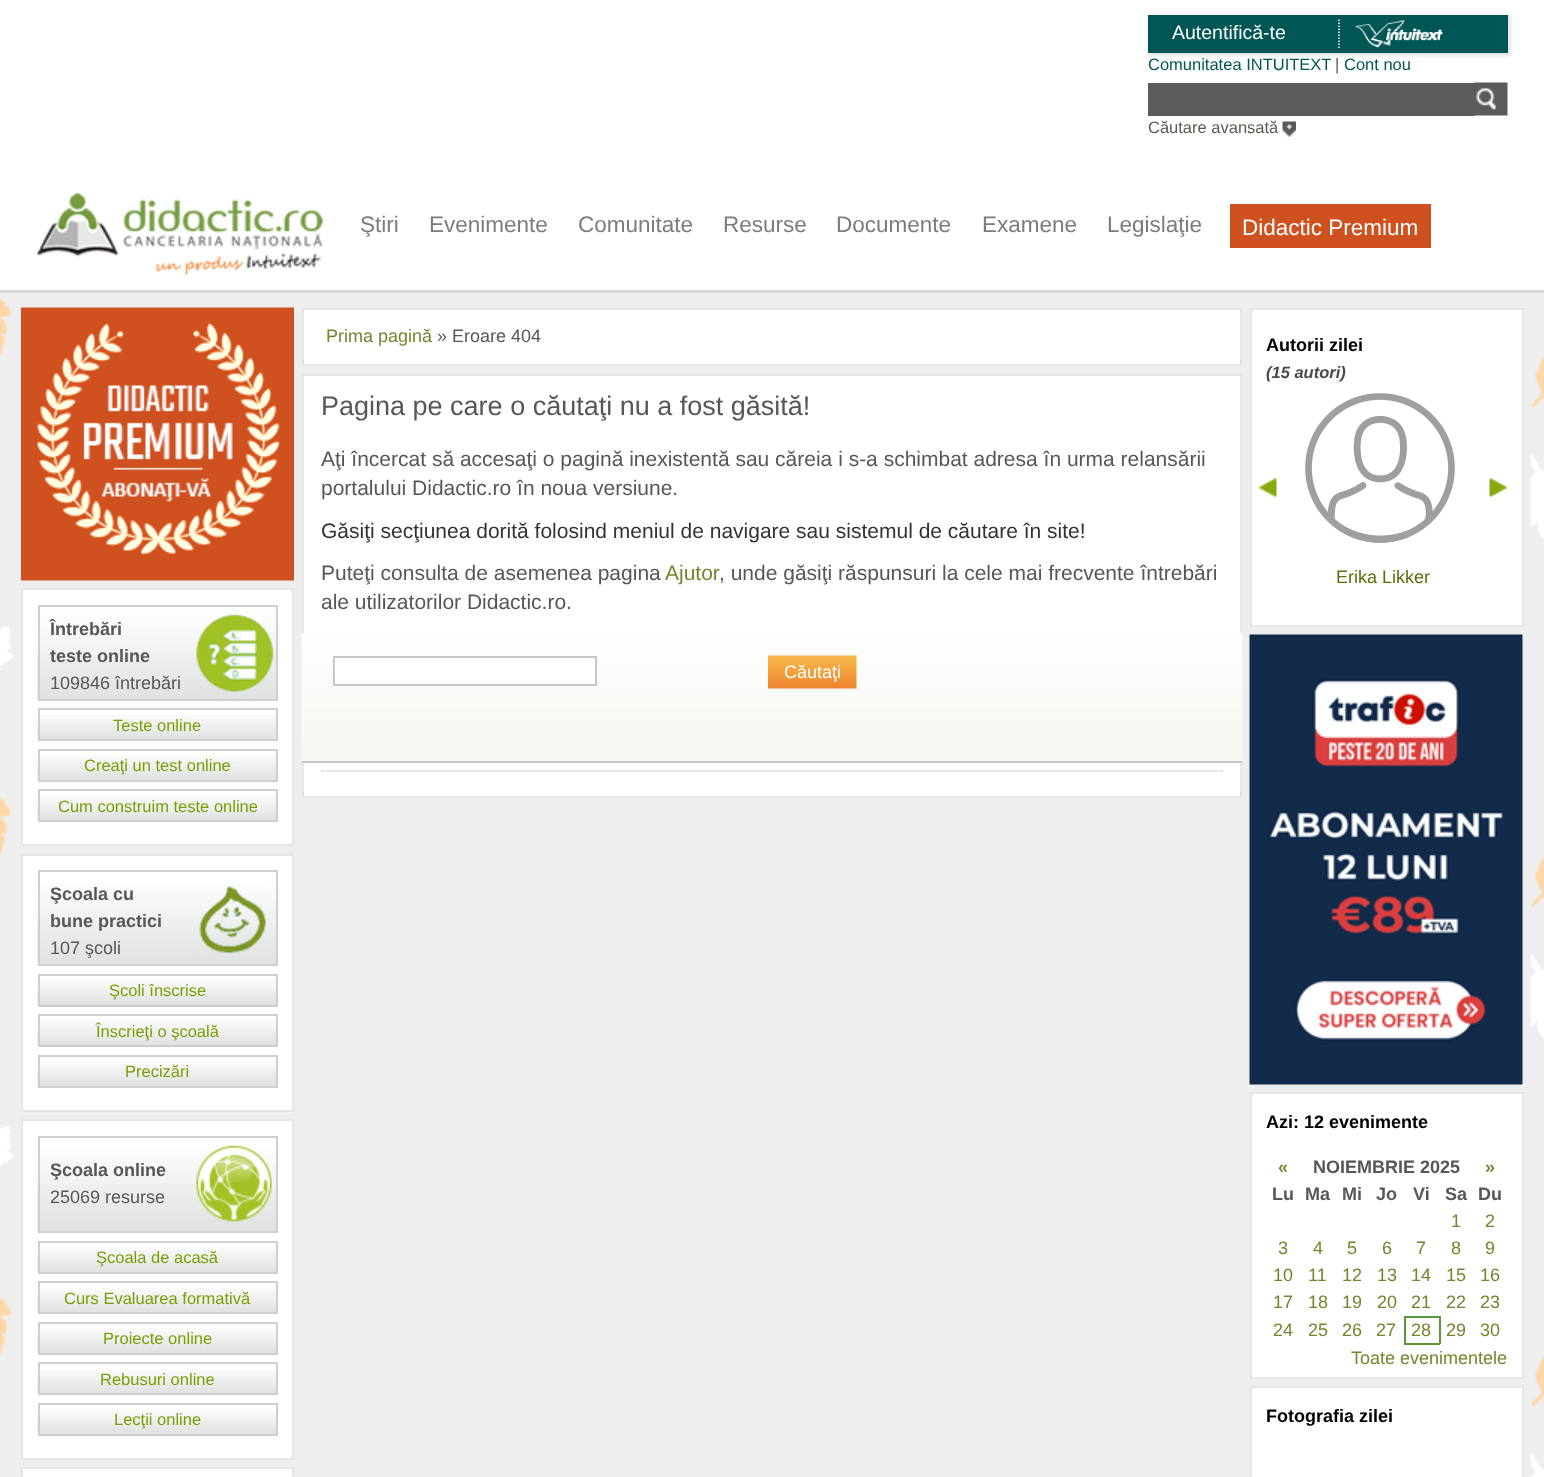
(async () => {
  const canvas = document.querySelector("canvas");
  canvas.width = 1544;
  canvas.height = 1477;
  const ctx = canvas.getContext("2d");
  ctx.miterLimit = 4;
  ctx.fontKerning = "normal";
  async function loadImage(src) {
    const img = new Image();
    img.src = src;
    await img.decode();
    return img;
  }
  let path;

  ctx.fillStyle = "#eeeeee";
  ctx.fillRect(0, 0, 1544, 1477);
  ctx.drawImage(await loadImage("img/1.png"), 0, 298, 1544, 1179);
  ctx.drawImage(await loadImage("img/2.png"), 0, 0, 1544, 293);
  ctx.fillStyle = "rgba(0, 0, 0, 0.1)";
  ctx.filter = "blur(1.5px)";
  ctx.beginPath();
  ctx.rect(1148, 15, 363, 41);
  ctx.fill();
  ctx.filter = "none";
  ctx.fillStyle = "#005555";
  ctx.fillRect(1148, 15, 360, 38);
  path = new Path2D("M1339 19.5V48");
  ctx.strokeStyle = "#ffffff";
  ctx.lineWidth = 1.5;
  ctx.setLineDash([1.5, 1.5]);
  ctx.stroke(path);
  ctx.drawImage(await loadImage("img/3.png"), 1354, 19, 90, 29);
  ctx.fillStyle = "#5b5b5b";
  ctx.fillRect(1148, 83, 327, 33);
  ctx.drawImage(await loadImage("img/4.png"), 1474, 82, 34, 34);
  ctx.drawImage(await loadImage("img/5.png"), 1282, 121, 14, 16);
  ctx.drawImage(await loadImage("img/6.png"), 37, 193, 286, 82);
  ctx.fillStyle = "#cf511f";
  ctx.fillRect(1230, 204, 201, 44);
  ctx.drawImage(await loadImage("img/7.png"), 21, 307, 273, 274);
  ctx.fillStyle = "#ffffff";
  ctx.beginPath();
  ctx.rect(22, 589, 271, 256);
  ctx.fill();
  ctx.strokeStyle = "#e8e5e5";
  ctx.lineWidth = 2;
  ctx.setLineDash([]);
  ctx.stroke();
  ctx.drawImage(await loadImage("img/8.png"), 37, 606, 239, 95);
  ctx.strokeStyle = "#cfcfcf";
  ctx.strokeRect(39, 606, 238, 94);
  ctx.drawImage(await loadImage("img/9.png"), 37, 715, 239, 25);
  ctx.strokeRect(39, 709, 238, 31);
  ctx.drawImage(await loadImage("img/10.png"), 37, 755, 239, 25);
  ctx.strokeRect(39, 750, 238, 31);
  ctx.drawImage(await loadImage("img/9.png"), 37, 796, 239, 25);
  ctx.strokeRect(39, 790, 238, 31);
  ctx.beginPath();
  ctx.rect(22, 855, 271, 256);
  ctx.fill();
  ctx.strokeStyle = "#e8e5e5";
  ctx.stroke();
  ctx.drawImage(await loadImage("img/11.png"), 37, 883, 239, 83);
  ctx.strokeStyle = "#cfcfcf";
  ctx.strokeRect(39, 871, 238, 94);
  ctx.drawImage(await loadImage("img/10.png"), 37, 980, 239, 25);
  ctx.strokeRect(39, 975, 238, 31);
  ctx.drawImage(await loadImage("img/9.png"), 37, 1021, 239, 25);
  ctx.strokeRect(39, 1015, 238, 31);
  ctx.drawImage(await loadImage("img/10.png"), 37, 1061, 239, 25);
  ctx.strokeRect(39, 1056, 238, 31);
  ctx.beginPath();
  ctx.rect(22, 1120, 271, 339);
  ctx.fill();
  ctx.strokeStyle = "#e8e5e5";
  ctx.stroke();
  ctx.drawImage(await loadImage("img/12.png"), 37, 1145, 239, 87);
  ctx.strokeStyle = "#cfcfcf";
  ctx.strokeRect(39, 1137, 238, 95);
  ctx.drawImage(await loadImage("img/10.png"), 37, 1247, 239, 25);
  ctx.strokeRect(39, 1242, 238, 31);
  ctx.drawImage(await loadImage("img/9.png"), 37, 1288, 239, 25);
  ctx.strokeRect(39, 1282, 238, 31);
  ctx.drawImage(await loadImage("img/10.png"), 37, 1328, 239, 25);
  ctx.strokeRect(39, 1323, 238, 31);
  ctx.drawImage(await loadImage("img/9.png"), 37, 1369, 239, 25);
  ctx.strokeRect(39, 1363, 238, 31);
  ctx.drawImage(await loadImage("img/10.png"), 37, 1409, 239, 25);
  ctx.strokeRect(39, 1404, 238, 31);
  ctx.beginPath();
  ctx.rect(22, 1468, 271, 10);
  ctx.fill();
  ctx.strokeStyle = "#e8e5e5";
  ctx.stroke();
  ctx.beginPath();
  ctx.rect(303, 309, 938, 56);
  ctx.fill();
  ctx.stroke();
  ctx.beginPath();
  ctx.rect(303, 375, 938, 422);
  ctx.fill();
  ctx.stroke();
  ctx.fillStyle = "#e8e5e5";
  ctx.fillRect(321, 770, 902, 2);
  ctx.fillStyle = "#f6f7f2";
  ctx.fillRect(302, 760, 940, 1);
  ctx.drawImage(await loadImage("img/13.png"), 301, 633, 941, 127);
  ctx.fillStyle = "#c7c7c7";
  ctx.fillRect(302, 761, 940, 2);
  ctx.fillStyle = "#ffffff";
  ctx.beginPath();
  ctx.rect(334, 657, 262, 28);
  ctx.fill();
  ctx.strokeStyle = "#c7c7c7";
  ctx.stroke();
  ctx.drawImage(await loadImage("img/14.png"), 768, 655, 89, 34);
  ctx.beginPath();
  ctx.rect(1251, 309, 272, 317);
  ctx.fill();
  ctx.strokeStyle = "#e8e5e5";
  ctx.stroke();
  ctx.drawImage(await loadImage("img/15.png"), 1258, 478, 19, 19);
  ctx.drawImage(await loadImage("img/16.png"), 1489, 478, 19, 19);
  ctx.drawImage(await loadImage("img/17.png"), 1305, 393, 150, 150);
  ctx.drawImage(await loadImage("img/18.png"), 1249, 634, 274, 451);
  ctx.beginPath();
  ctx.rect(1251, 1093, 272, 285);
  ctx.fill();
  ctx.stroke();
  for (const [x, y, w, h, color] of [
    [1404, 1316, 36, 2, "#59973b"],
    [1439, 1316, 2, 28, "#59973b"],
    [1404, 1343, 36, 2, "#59973b"],
    [1404, 1316, 2, 28, "#59973b"],
  ]) {
    ctx.fillStyle = color;
    ctx.fillRect(x, y, w, h);
  }
  ctx.fillStyle = "#ffffff";
  ctx.beginPath();
  ctx.rect(1251, 1387, 272, 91);
  ctx.fill();
  ctx.stroke();
  ctx.font = "19.5px Liberation Sans";
  ctx.fillText("Autentifică-te", 1172, 39);
  ctx.font = "16.5px Liberation Sans";
  ctx.fillStyle = "#005555";
  ctx.fillText("Comunitatea INTUITEXT", 1148, 70);
  ctx.fillStyle = "#5d5953";
  ctx.fillText("|", 1335, 70);
  ctx.fillStyle = "#005555";
  ctx.fillText("Cont nou", 1344, 70);
  ctx.fillStyle = "#5d5953";
  ctx.fillText("Căutare avansată", 1148, 133);
  ctx.font = "22.5px Liberation Sans";
  ctx.fillStyle = "#7c7c7c";
  for (const [text, x, y] of [
    ["Ştiri", 360, 232],
    ["Evenimente", 429, 232],
    ["Comunitate", 578, 232],
    ["Resurse", 723, 232],
    ["Documente", 836, 232],
    ["Examene", 982, 232],
    ["Legislaţie", 1107, 232],
  ]) {
    ctx.fillText(text, x, y);
  }
  ctx.fillStyle = "#ffffff";
  ctx.fillText("Didactic Premium", 1242, 235);
  ctx.font = "bold 18px Liberation Sans";
  ctx.fillStyle = "#575757";
  ctx.fillText("Întrebări", 50, 635);
  ctx.fillText("teste online", 50, 662);
  ctx.font = "18px Liberation Sans";
  ctx.fillText("109846 întrebări", 50, 689);
  ctx.font = "16.5px Liberation Sans";
  ctx.fillStyle = "#789f04";
  for (const [text, x, y] of [
    ["Teste online", 113, 731],
    ["Creaţi un test online", 84, 771],
    ["Cum construim teste online", 58, 812],
  ]) {
    ctx.fillText(text, x, y);
  }
  ctx.font = "bold 18px Liberation Sans";
  ctx.fillStyle = "#575757";
  ctx.fillText("Şcoala cu", 50, 900);
  ctx.fillText("bune practici", 50, 927);
  ctx.font = "18px Liberation Sans";
  ctx.fillText("107 şcoli", 50, 954);
  ctx.font = "16.5px Liberation Sans";
  ctx.fillStyle = "#789f04";
  for (const [text, x, y] of [
    ["Şcoli înscrise", 109, 996],
    ["Înscrieţi o şcoală", 96, 1037],
    ["Precizări", 125, 1077],
  ]) {
    ctx.fillText(text, x, y);
  }
  ctx.font = "bold 18px Liberation Sans";
  ctx.fillStyle = "#575757";
  ctx.fillText("Şcoala online", 50, 1176);
  ctx.font = "18px Liberation Sans";
  ctx.fillText("25069 resurse", 50, 1203);
  ctx.font = "16.5px Liberation Sans";
  ctx.fillStyle = "#789f04";
  for (const [text, x, y] of [
    ["Şcoala de acasă", 96, 1263],
    ["Curs Evaluarea formativă", 64, 1304],
    ["Proiecte online", 103, 1344],
    ["Rebusuri online", 100, 1385],
    ["Lecţii online", 114, 1425],
  ]) {
    ctx.fillText(text, x, y);
  }
  ctx.font = "18px Liberation Sans";
  ctx.fillStyle = "#75852e";
  ctx.fillText("Prima pagină", 326, 342);
  ctx.fillStyle = "#575757";
  ctx.fillText("» Eroare 404", 437, 342);
  ctx.font = "27px Liberation Sans";
  ctx.fillText("Pagina pe care o căutaţi nu a fost găsită!", 321, 415);
  ctx.font = "21px Liberation Sans";
  ctx.fillText("Aţi încercat să accesaţi o pagină inexistentă sau căreia i s-a schimbat adresa în urma relansării", 321, 466);
  ctx.fillText("portalului Didactic.ro în noua versiune.", 321, 495);
  ctx.fillStyle = "#333333";
  ctx.fillText("Găsiţi secţiunea dorită folosind meniul de navigare sau sistemul de căutare în site!", 321, 538);
  ctx.fillStyle = "#575757";
  ctx.fillText("Puteţi consulta de asemenea pagina", 321, 580);
  ctx.fillStyle = "#75852e";
  ctx.fillText("Ajutor", 665, 580);
  ctx.fillStyle = "#575757";
  ctx.fillText(", unde găsiţi răspunsuri la cele mai frecvente întrebări", 719, 580);
  ctx.fillText("ale utilizatorilor Didactic.ro.", 321, 609);
  ctx.font = "18px Liberation Sans";
  ctx.fillStyle = "#ffffff";
  ctx.fillText("Căutaţi", 784, 678);
  ctx.font = "bold 18px Liberation Sans";
  ctx.fillStyle = "#000000";
  ctx.fillText("Autorii zilei", 1266, 351);
  ctx.font = "italic bold 16.5px Liberation Sans";
  ctx.fillStyle = "#4a4a4a";
  ctx.fillText("(15 autori)", 1266, 378);
  ctx.font = "18px Liberation Sans";
  ctx.fillStyle = "#587008";
  ctx.fillText("Erika Likker", 1336, 583);
  ctx.font = "bold 18px Liberation Sans";
  ctx.fillStyle = "#000000";
  ctx.fillText("Azi: 12 evenimente", 1266, 1128);
  ctx.fillStyle = "#75852e";
  ctx.fillText("«", 1278, 1173);
  ctx.fillStyle = "#575757";
  ctx.fillText("NOIEMBRIE 2025", 1313, 1173);
  ctx.fillStyle = "#75852e";
  ctx.fillText("»", 1485, 1173);
  ctx.fillStyle = "#575757";
  for (const [text, x, y] of [
    ["Lu", 1272, 1200],
    ["Ma", 1305, 1200],
    ["Mi", 1342, 1200],
    ["Jo", 1376, 1200],
    ["Vi", 1413, 1200],
    ["Sa", 1445, 1200],
    ["Du", 1478, 1200],
  ]) {
    ctx.fillText(text, x, y);
  }
  ctx.font = "18px Liberation Sans";
  ctx.fillStyle = "#75852e";
  for (const [text, x, y] of [
    ["1", 1451, 1227],
    ["2", 1485, 1227],
    ["3", 1278, 1254],
    ["4", 1313, 1254],
    ["5", 1347, 1254],
    ["6", 1382, 1254],
    ["7", 1416, 1254],
    ["8", 1451, 1254],
    ["9", 1485, 1254],
    ["10", 1273, 1281],
    ["11", 1308, 1281],
    ["12", 1342, 1281],
    ["13", 1377, 1281],
    ["14", 1411, 1281],
    ["15", 1446, 1281],
    ["16", 1480, 1281],
    ["17", 1273, 1308],
    ["18", 1308, 1308],
    ["19", 1342, 1308],
    ["20", 1377, 1308],
    ["21", 1411, 1308],
    ["22", 1446, 1308],
    ["23", 1480, 1308],
    ["24", 1273, 1336],
    ["25", 1308, 1336],
    ["26", 1342, 1336],
    ["27", 1376, 1336],
    ["28", 1411, 1336],
    ["29", 1446, 1336],
    ["30", 1480, 1336],
    ["Toate evenimentele", 1351, 1364],
  ]) {
    ctx.fillText(text, x, y);
  }
  ctx.font = "bold 18px Liberation Sans";
  ctx.fillStyle = "#000000";
  ctx.fillText("Fotografia zilei", 1266, 1422);
})();
